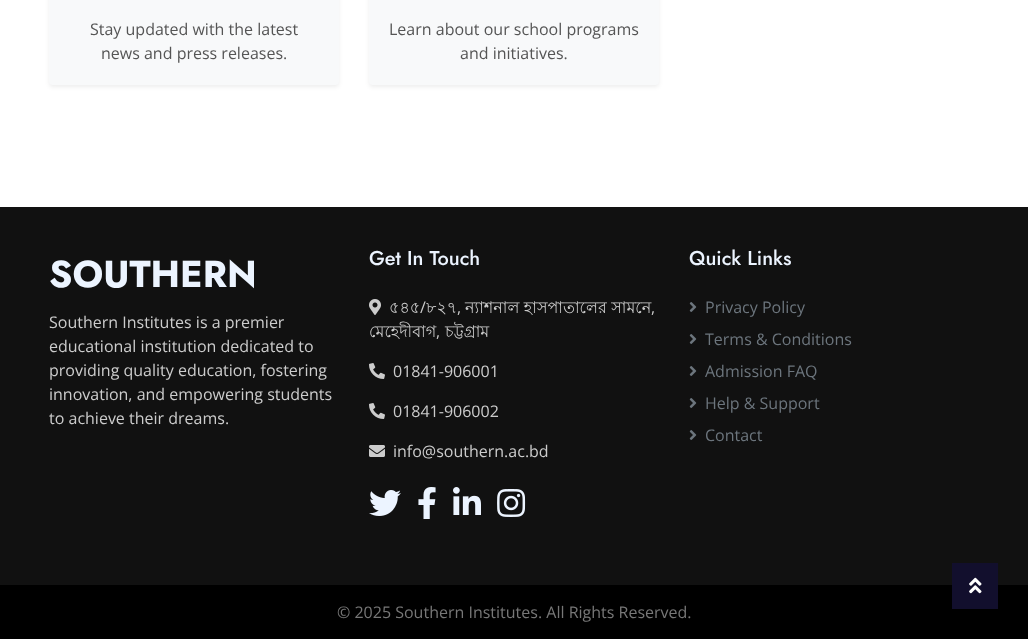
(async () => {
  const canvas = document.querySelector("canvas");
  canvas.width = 1028;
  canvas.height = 639;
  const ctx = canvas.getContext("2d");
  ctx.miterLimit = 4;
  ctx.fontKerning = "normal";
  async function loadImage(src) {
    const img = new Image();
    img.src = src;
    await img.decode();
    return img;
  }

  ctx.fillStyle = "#ffffff";
  ctx.fillRect(0, 0, 1028, 639);
  ctx.fillStyle = "rgba(0, 0, 0, 0.07)";
  ctx.filter = "blur(2px)";
  ctx.beginPath();
  ctx.roundRect(49, -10, 290, 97, 4);
  ctx.fill();
  ctx.filter = "none";
  ctx.fillStyle = "#f8f9fa";
  ctx.beginPath();
  ctx.roundRect(49, -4, 290, 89, 4);
  ctx.fill();
  ctx.fillStyle = "rgba(0, 0, 0, 0.07)";
  ctx.filter = "blur(2px)";
  ctx.beginPath();
  ctx.roundRect(369, -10, 290, 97, 4);
  ctx.fill();
  ctx.filter = "none";
  ctx.fillStyle = "#f8f9fa";
  ctx.beginPath();
  ctx.roundRect(369, -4, 290, 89, 4);
  ctx.fill();
  ctx.fillStyle = "#111111";
  ctx.fillRect(0, 207, 1028, 378);
  ctx.drawImage(await loadImage("img/1.png"), 369, 299, 12, 16);
  ctx.drawImage(await loadImage("img/2.png"), 369, 363, 16, 16);
  ctx.drawImage(await loadImage("img/2.png"), 369, 403, 16, 16);
  ctx.drawImage(await loadImage("img/3.png"), 369, 445, 16, 12);
  ctx.drawImage(await loadImage("img/4.png"), 369, 490, 32, 26);
  ctx.drawImage(await loadImage("img/5.png"), 418, 487, 18, 32);
  ctx.drawImage(await loadImage("img/6.png"), 453, 487, 28, 28);
  ctx.drawImage(await loadImage("img/7.png"), 497, 489, 29, 28);
  ctx.drawImage(await loadImage("img/8.png"), 689, 302, 8, 10);
  ctx.drawImage(await loadImage("img/8.png"), 689, 334, 8, 10);
  ctx.drawImage(await loadImage("img/8.png"), 689, 366, 8, 10);
  ctx.drawImage(await loadImage("img/8.png"), 689, 398, 8, 10);
  ctx.drawImage(await loadImage("img/8.png"), 689, 430, 8, 10);
  ctx.fillStyle = "#000000";
  ctx.fillRect(0, 585, 1028, 54);
  ctx.fillStyle = "#120f2d";
  ctx.fillRect(952, 563, 46, 46);
  ctx.drawImage(await loadImage("img/9.png"), 969, 577, 13, 17);
  ctx.font = "16px Open Sans";
  ctx.fillStyle = "#555555";
  for (const [text, x, y] of [
    ["Stay updated with the latest", 90, 35],
    ["news and press releases.", 101, 59],
    ["Learn about our school programs", 389, 35],
    ["and initiatives.", 460, 59],
  ]) {
    ctx.fillText(text, x, y);
  }
  ctx.font = "bold 37.5px Jost";
  ctx.fillStyle = "#ecf4ff";
  ctx.fillText("SOUTHERN", 49, 287);
  ctx.font = "16px Open Sans";
  ctx.fillStyle = "#cccccc";
  for (const [text, x, y] of [
    ["Southern Institutes is a premier", 49, 328],
    ["educational institution dedicated to", 49, 352],
    ["providing quality education, fostering", 49, 376],
    ["innovation, and empowering students", 49, 400],
    ["to achieve their dreams.", 49, 424],
  ]) {
    ctx.fillText(text, x, y);
  }
  ctx.font = "500 20px Jost";
  ctx.fillStyle = "#ecf4ff";
  ctx.fillText("Get In Touch", 369, 265);
  ctx.font = "16px Lohit Bengali";
  ctx.fillStyle = "#cccccc";
  ctx.fillText("৫৪৫", 389, 313);
  ctx.font = "16px Open Sans";
  ctx.fillText("/", 420, 313);
  ctx.font = "16px Lohit Bengali";
  ctx.fillText("৮২৭", 426, 313);
  ctx.font = "16px Open Sans";
  ctx.fillText(",", 457, 313);
  ctx.font = "16px Lohit Bengali";
  ctx.fillText("ন্যাশনাল হাসপাতালের সামনে", 465, 313);
  ctx.font = "16px Open Sans";
  ctx.fillText(",", 651, 313);
  ctx.font = "16px Lohit Bengali";
  ctx.fillText("মেহেদীবাগ", 369, 337);
  ctx.font = "16px Open Sans";
  ctx.fillText(",", 436, 337);
  ctx.font = "16px Lohit Bengali";
  ctx.fillText("চট্টগ্রাম", 445, 337);
  ctx.font = "16px Open Sans";
  for (const [text, x, y] of [
    ["01841-906001", 393, 377],
    ["01841-906002", 393, 417],
    ["info@southern.ac.bd", 393, 457],
  ]) {
    ctx.fillText(text, x, y);
  }
  ctx.font = "500 20px Jost";
  ctx.fillStyle = "#ecf4ff";
  ctx.fillText("Quick Links", 689, 265);
  ctx.font = "16px Open Sans";
  ctx.fillStyle = "#6c757d";
  for (const [text, x, y] of [
    ["Privacy Policy", 705, 313],
    ["Terms & Conditions", 705, 345],
    ["Admission FAQ", 705, 377],
    ["Help & Support", 705, 409],
    ["Contact", 705, 441],
  ]) {
    ctx.fillText(text, x, y);
  }
  ctx.fillStyle = "#777777";
  ctx.fillText("© 2025 Southern Institutes. All Rights Reserved.", 337, 618);
})();
